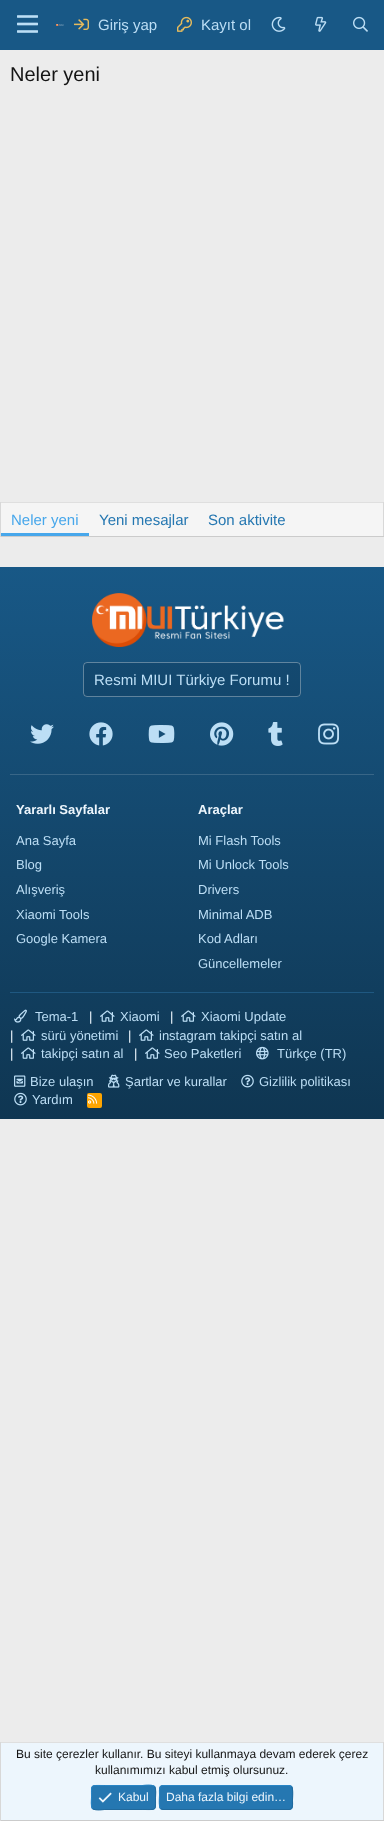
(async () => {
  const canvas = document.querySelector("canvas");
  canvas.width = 384;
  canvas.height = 1821;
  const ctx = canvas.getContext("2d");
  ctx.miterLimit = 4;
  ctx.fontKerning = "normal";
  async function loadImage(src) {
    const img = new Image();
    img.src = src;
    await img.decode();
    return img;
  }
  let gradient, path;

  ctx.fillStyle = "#ececec";
  ctx.fillRect(0, 0, 384, 1821);
  ctx.fillStyle = "#185886";
  ctx.fillRect(0, 0, 384, 50);
  ctx.drawImage(await loadImage("img/1.png"), 17, 15, 21, 18);
  ctx.drawImage(await loadImage("img/2.png"), 56, 24, 8, 2);
  ctx.drawImage(await loadImage("img/3.png"), 74, 18, 15, 12);
  ctx.drawImage(await loadImage("img/4.png"), 177, 16, 15, 16);
  ctx.drawImage(await loadImage("img/5.png"), 271, 16, 15, 16);
  ctx.drawImage(await loadImage("img/6.png"), 315, 16, 12, 16);
  ctx.drawImage(await loadImage("img/7.png"), 353, 16, 15, 16);
  for (const [x, y, w, h, color] of [
    [1, 503, 382, 33, "#f5f5f5"],
    [0, 502, 384, 1, "#dfdfdf"],
    [383, 502, 1, 35, "#d8d8d8"],
    [0, 536, 384, 1, "#cbcbcb"],
    [0, 502, 1, 35, "#d8d8d8"],
    [1, 533, 88, 3, "#47a7eb"],
  ]) {
    ctx.fillStyle = color;
    ctx.fillRect(x, y, w, h);
  }
  gradient = ctx.createLinearGradient(192, 1119, 192, 567);
  gradient.addColorStop(0, "#0f3652");
  gradient.addColorStop(1, "#185886");
  ctx.fillStyle = gradient;
  ctx.fillRect(0, 567, 384, 552);
  ctx.fillStyle = "#1f5881";
  ctx.fillRect(10, 992, 364, 1);
  ctx.fillStyle = "#386687";
  ctx.fillRect(10, 774, 364, 1);
  ctx.drawImage(await loadImage("img/8.png"), 92, 593, 192, 54);
  ctx.fillStyle = "rgba(0, 0, 0, 0.1)";
  ctx.beginPath();
  ctx.roundRect(83, 662, 218, 35, 4);
  ctx.fill();
  ctx.beginPath();
  ctx.roundRect(83.5, 662.5, 217, 34, 3.5);
  ctx.strokeStyle = "rgba(255, 255, 255, 0.33)";
  ctx.stroke();
  ctx.drawImage(await loadImage("img/9.png"), 30, 724, 24, 20);
  ctx.drawImage(await loadImage("img/10.png"), 89, 722, 24, 24);
  ctx.drawImage(await loadImage("img/11.png"), 148, 725, 27, 18);
  ctx.drawImage(await loadImage("img/12.png"), 210, 722, 24, 24);
  ctx.drawImage(await loadImage("img/13.png"), 268, 722, 15, 24);
  ctx.drawImage(await loadImage("img/14.png"), 318, 723, 22, 22);
  ctx.drawImage(await loadImage("img/15.png"), 14, 1009, 13, 14);
  ctx.drawImage(await loadImage("img/16.png"), 100, 1010, 15, 12);
  ctx.drawImage(await loadImage("img/16.png"), 181, 1010, 15, 12);
  ctx.drawImage(await loadImage("img/17.png"), 21, 1029, 15, 12);
  ctx.drawImage(await loadImage("img/17.png"), 139, 1029, 15, 12);
  ctx.drawImage(await loadImage("img/18.png"), 21, 1047, 15, 12);
  ctx.drawImage(await loadImage("img/18.png"), 145, 1047, 15, 12);
  ctx.drawImage(await loadImage("img/19.png"), 256, 1046, 13, 14);
  ctx.drawImage(await loadImage("img/20.png"), 14, 1075, 12, 12);
  ctx.drawImage(await loadImage("img/21.png"), 108, 1074, 12, 14);
  ctx.drawImage(await loadImage("img/22.png"), 241, 1074, 13, 14);
  ctx.drawImage(await loadImage("img/23.png"), 14, 1092, 13, 14);
  ctx.fillStyle = "#ffa500";
  ctx.beginPath();
  ctx.roundRect(87, 1093, 15, 15, 2);
  ctx.fill();
  ctx.drawImage(await loadImage("img/24.png"), 88, 1094, 10, 10);
  for (const [x, y, w, h, color] of [
    [1, 1743, 382, 77, "#edf6fd"],
    [0, 1742, 384, 1, "#dfdfdf"],
    [383, 1742, 1, 79, "#d8d8d8"],
    [0, 1820, 384, 1, "#cbcbcb"],
    [0, 1742, 1, 79, "#d8d8d8"],
  ]) {
    ctx.fillStyle = color;
    ctx.fillRect(x, y, w, h);
  }
  ctx.fillStyle = "#2577b1";
  ctx.beginPath();
  ctx.roundRect(91, 1785, 65, 25, 4);
  ctx.fill();
  path = new Path2D("M154.5 1786.5C156.5 1789 155.5 1795 155.5 1797.5C155.5 1811 157 1809.5 142.5 1809.5H104.5C104 1809.5 95 1811 92.5 1808.5");
  ctx.strokeStyle = "#21699c";
  ctx.stroke(path);
  path = new Path2D("M92.5 1808.5C90.5 1806 91.5 1800 91.5 1797.5C91.5 1784 90 1785.5 104.5 1785.5H142.5C143 1785.5 152 1784 154.5 1786.5");
  ctx.strokeStyle = "#2985c6";
  ctx.stroke(path);
  ctx.drawImage(await loadImage("img/25.png"), 98, 1792, 14, 11);
  ctx.beginPath();
  ctx.roundRect(159, 1785, 134, 25, 4);
  ctx.fill();
  path = new Path2D("M291.5 1786.5C293.5 1789 292.5 1797.5 292.5 1800.5C292.5 1803 293.5 1809.5 289 1809.5H163L160.5 1808.5");
  ctx.strokeStyle = "#21699c";
  ctx.stroke(path);
  path = new Path2D("M160.5 1808.5C158.5 1806 159.5 1797.5 159.5 1794.5C159.5 1792 158.5 1785.5 163 1785.5H289L291.5 1786.5");
  ctx.strokeStyle = "#2985c6";
  ctx.stroke(path);
  ctx.font = "15px Liberation Sans";
  ctx.fillStyle = "#bcdef5";
  ctx.fillText("Giriş yap", 98, 30);
  ctx.fillText("Kayıt ol", 201, 30);
  ctx.font = "20px Liberation Sans";
  ctx.fillStyle = "#141414";
  ctx.fillText("Neler yeni", 10, 81);
  ctx.font = "15px Liberation Sans";
  ctx.fillStyle = "#47a7eb";
  ctx.fillText("Neler yeni", 11, 525);
  ctx.fillStyle = "#2577b1";
  ctx.fillText("Yeni mesajlar", 99, 525);
  ctx.fillText("Son aktivite", 208, 525);
  ctx.fillStyle = "#bcdef5";
  ctx.fillText("Resmi MIUI Türkiye Forumu !", 94, 685);
  ctx.font = "bold 13px Liberation Sans";
  ctx.fillStyle = "#edf6fd";
  ctx.fillText("Yararlı Sayfalar", 16, 814);
  ctx.font = "13px Liberation Sans";
  ctx.fillStyle = "#bcdef5";
  for (const [text, x, y] of [
    ["Ana Sayfa", 16, 845],
    ["Blog", 16, 869],
    ["Alışveriş", 16, 894],
    ["Xiaomi Tools", 16, 919],
    ["Google Kamera", 16, 943],
  ]) {
    ctx.fillText(text, x, y);
  }
  ctx.font = "bold 13px Liberation Sans";
  ctx.fillStyle = "#edf6fd";
  ctx.fillText("Araçlar", 198, 814);
  ctx.font = "13px Liberation Sans";
  ctx.fillStyle = "#bcdef5";
  for (const [text, x, y] of [
    ["Mi Flash Tools", 198, 845],
    ["Mi Unlock Tools", 198, 869],
    ["Drivers", 198, 894],
    ["Minimal ADB", 198, 919],
    ["Kod Adları", 198, 943],
    ["Güncellemeler", 198, 968],
    ["Tema-1", 35, 1021],
  ]) {
    ctx.fillText(text, x, y);
  }
  ctx.fillStyle = "#edf6fd";
  ctx.fillText("|", 89, 1021);
  ctx.fillStyle = "#bcdef5";
  ctx.fillText("Xiaomi", 120, 1021);
  ctx.fillStyle = "#edf6fd";
  ctx.fillText("|", 170, 1021);
  ctx.fillStyle = "#bcdef5";
  ctx.fillText("Xiaomi Update", 201, 1021);
  ctx.fillStyle = "#edf6fd";
  ctx.fillText("|", 10, 1040);
  ctx.fillStyle = "#bcdef5";
  ctx.fillText("sürü yönetimi", 41, 1040);
  ctx.fillStyle = "#edf6fd";
  ctx.fillText("|", 128, 1040);
  ctx.fillStyle = "#bcdef5";
  ctx.fillText("instagram takipçi satın al", 159, 1040);
  ctx.fillStyle = "#edf6fd";
  ctx.fillText("|", 10, 1058);
  ctx.fillStyle = "#bcdef5";
  ctx.fillText("takipçi satın al", 41, 1058);
  ctx.fillStyle = "#edf6fd";
  ctx.fillText("|", 134, 1058);
  ctx.fillStyle = "#bcdef5";
  for (const [text, x, y] of [
    ["Seo Paketleri", 164, 1058],
    ["Türkçe (TR)", 277, 1058],
    ["Bize ulaşın", 30, 1086],
    ["Şartlar ve kurallar", 125, 1086],
    ["Gizlilik politikası", 259, 1086],
    ["Yardım", 32, 1104],
  ]) {
    ctx.fillText(text, x, y);
  }
  ctx.font = "12px Liberation Sans";
  ctx.fillStyle = "#141414";
  ctx.fillText("Bu site çerezler kullanır. Bu siteyi kullanmaya devam ederek çerez", 16, 1758);
  ctx.fillText("kullanımımızı kabul etmiş olursunuz.", 95, 1774);
  ctx.fillStyle = "#edf6fd";
  ctx.fillText("Kabul", 118, 1801);
  ctx.fillText("Daha fazla bilgi edin…", 166, 1801);
})();
